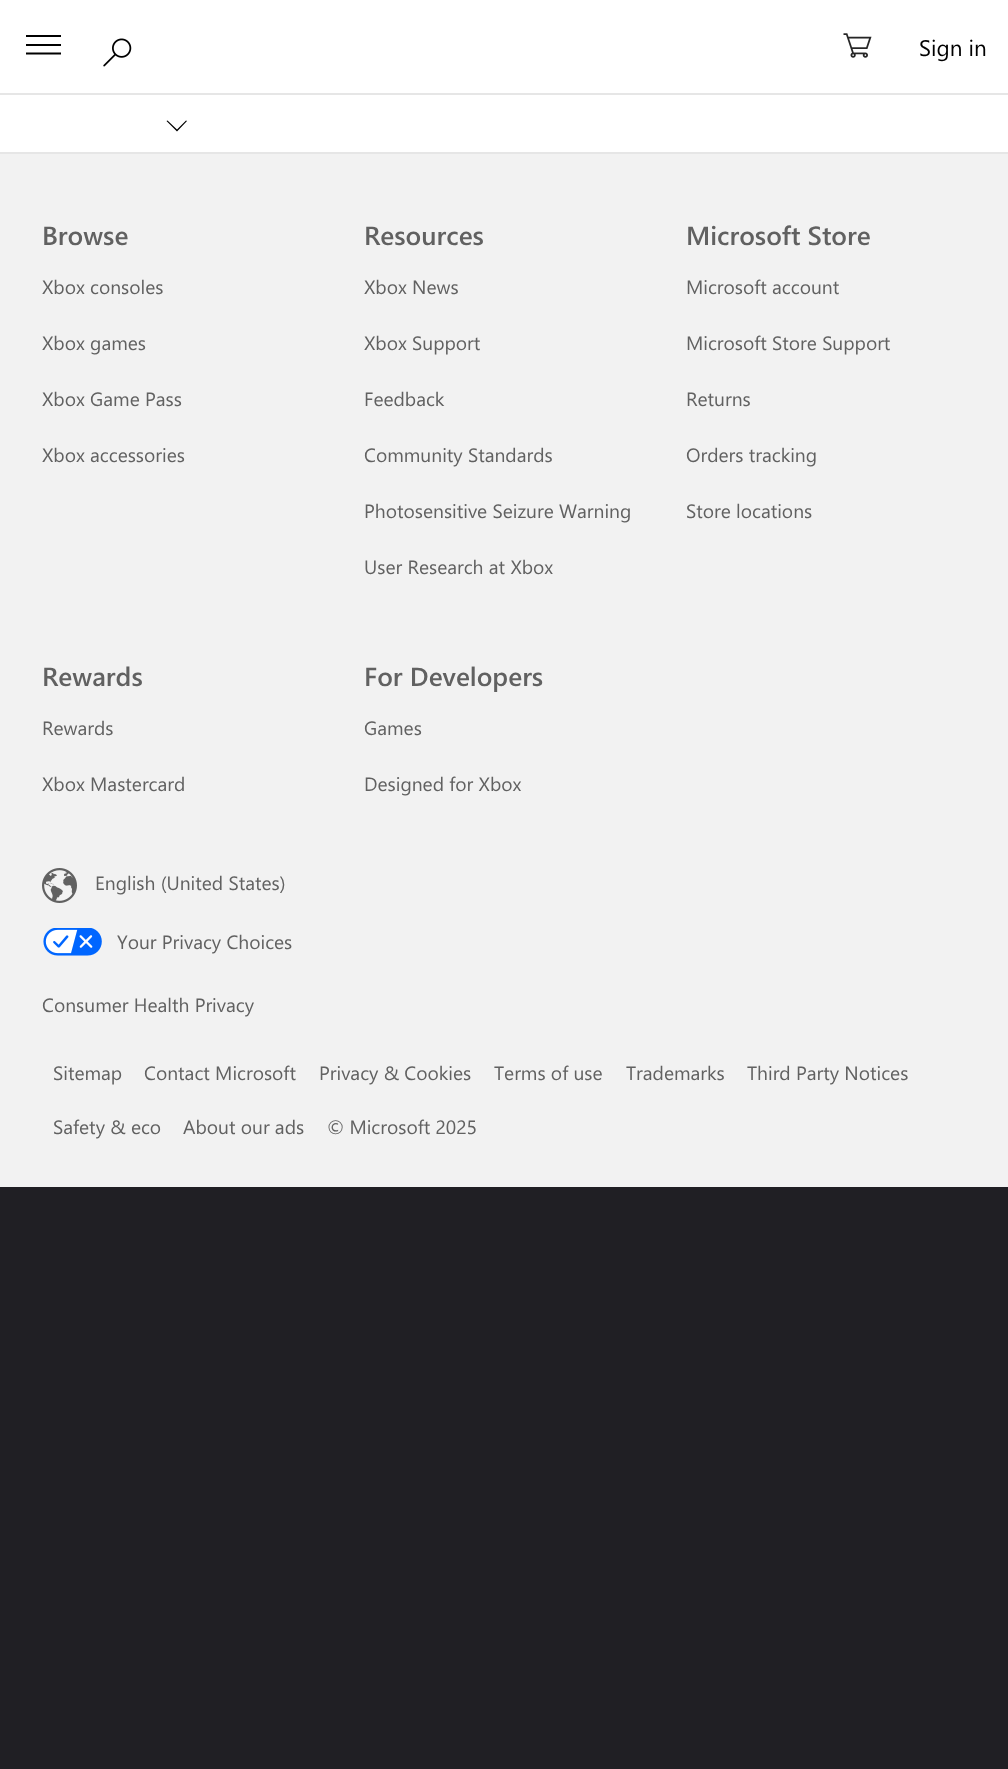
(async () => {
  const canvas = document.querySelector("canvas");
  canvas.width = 1008;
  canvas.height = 1769;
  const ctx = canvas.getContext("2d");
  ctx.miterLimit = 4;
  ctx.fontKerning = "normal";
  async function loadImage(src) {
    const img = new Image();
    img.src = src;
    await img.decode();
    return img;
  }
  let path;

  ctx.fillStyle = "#201f24";
  ctx.fillRect(0, 0, 1008, 1769);
  ctx.fillStyle = "#ffffff";
  ctx.fillRect(0, 0, 1008, 152);
  ctx.fillStyle = "#e6e6e6";
  ctx.fillRect(0, 93, 1008, 2);
  ctx.fillStyle = "#000000";
  path = new Path2D("M61 37H26V35H61ZM61 54.5H26V52.5H61ZM61 46H26V44H61Z");
  ctx.fill(path);
  ctx.drawImage(await loadImage("img/1.png"), 103, 38, 29, 29);
  ctx.drawImage(await loadImage("img/2.png"), 843, 33, 29, 25);
  ctx.fillStyle = "#e6e6e6";
  ctx.fillRect(0, 152, 1008, 2);
  ctx.fillStyle = "#000000";
  path = new Path2D("M186 120.5L187 121L177 131.5L166.5 121L167.5 120.5L177 129.5Z");
  ctx.fill(path);
  ctx.fillStyle = "#f2f2f2";
  ctx.fillRect(0, 154, 1008, 1033);
  ctx.drawImage(await loadImage("img/3.png"), 42, 868, 35, 35);
  ctx.drawImage(await loadImage("img/4.png"), 43, 928, 59, 28);
  ctx.font = "22.5px Segoe UI";
  ctx.fillStyle = "#000000";
  ctx.fillText("Sign in", 919, 56);
  ctx.font = "600 26.25px Segoe UI";
  ctx.fillStyle = "#616161";
  ctx.fillText("Browse", 42, 245);
  ctx.font = "19.25px Segoe UI";
  for (const [text, x, y] of [
    ["Xbox consoles", 42, 294],
    ["Xbox games", 42, 350],
    ["Xbox Game Pass", 42, 406],
    ["Xbox accessories", 42, 462],
  ]) {
    ctx.fillText(text, x, y);
  }
  ctx.font = "600 26.25px Segoe UI";
  ctx.fillText("Resources", 364, 245);
  ctx.font = "19.25px Segoe UI";
  for (const [text, x, y] of [
    ["Xbox News", 364, 294],
    ["Xbox Support", 364, 350],
    ["Feedback", 364, 406],
    ["Community Standards", 364, 462],
    ["Photosensitive Seizure Warning", 364, 518],
    ["User Research at Xbox", 364, 574],
  ]) {
    ctx.fillText(text, x, y);
  }
  ctx.font = "600 26.25px Segoe UI";
  ctx.fillText("Microsoft Store", 686, 245);
  ctx.font = "19.25px Segoe UI";
  for (const [text, x, y] of [
    ["Microsoft account", 686, 294],
    ["Microsoft Store Support", 686, 350],
    ["Returns", 686, 406],
    ["Orders tracking", 686, 462],
    ["Store locations", 686, 518],
  ]) {
    ctx.fillText(text, x, y);
  }
  ctx.font = "600 26.25px Segoe UI";
  ctx.fillText("Rewards", 42, 686);
  ctx.font = "19.25px Segoe UI";
  ctx.fillText("Rewards", 42, 735);
  ctx.fillText("Xbox Mastercard", 42, 791);
  ctx.font = "600 26.25px Segoe UI";
  ctx.fillText("For Developers", 364, 686);
  ctx.font = "19.25px Segoe UI";
  for (const [text, x, y] of [
    ["Games", 364, 735],
    ["Designed for Xbox", 364, 791],
    ["English (United States)", 95, 890],
    ["Your Privacy Choices", 117, 949],
    ["Consumer Health Privacy", 42, 1012],
    ["Sitemap", 53, 1080],
    ["Contact Microsoft", 144, 1080],
    ["Privacy & Cookies", 319, 1080],
    ["Terms of use", 494, 1080],
    ["Trademarks", 626, 1080],
    ["Third Party Notices", 747, 1080],
    ["Safety & eco", 53, 1134],
    ["About our ads", 183, 1134],
    ["© Microsoft 2025", 327, 1134],
  ]) {
    ctx.fillText(text, x, y);
  }
})();
